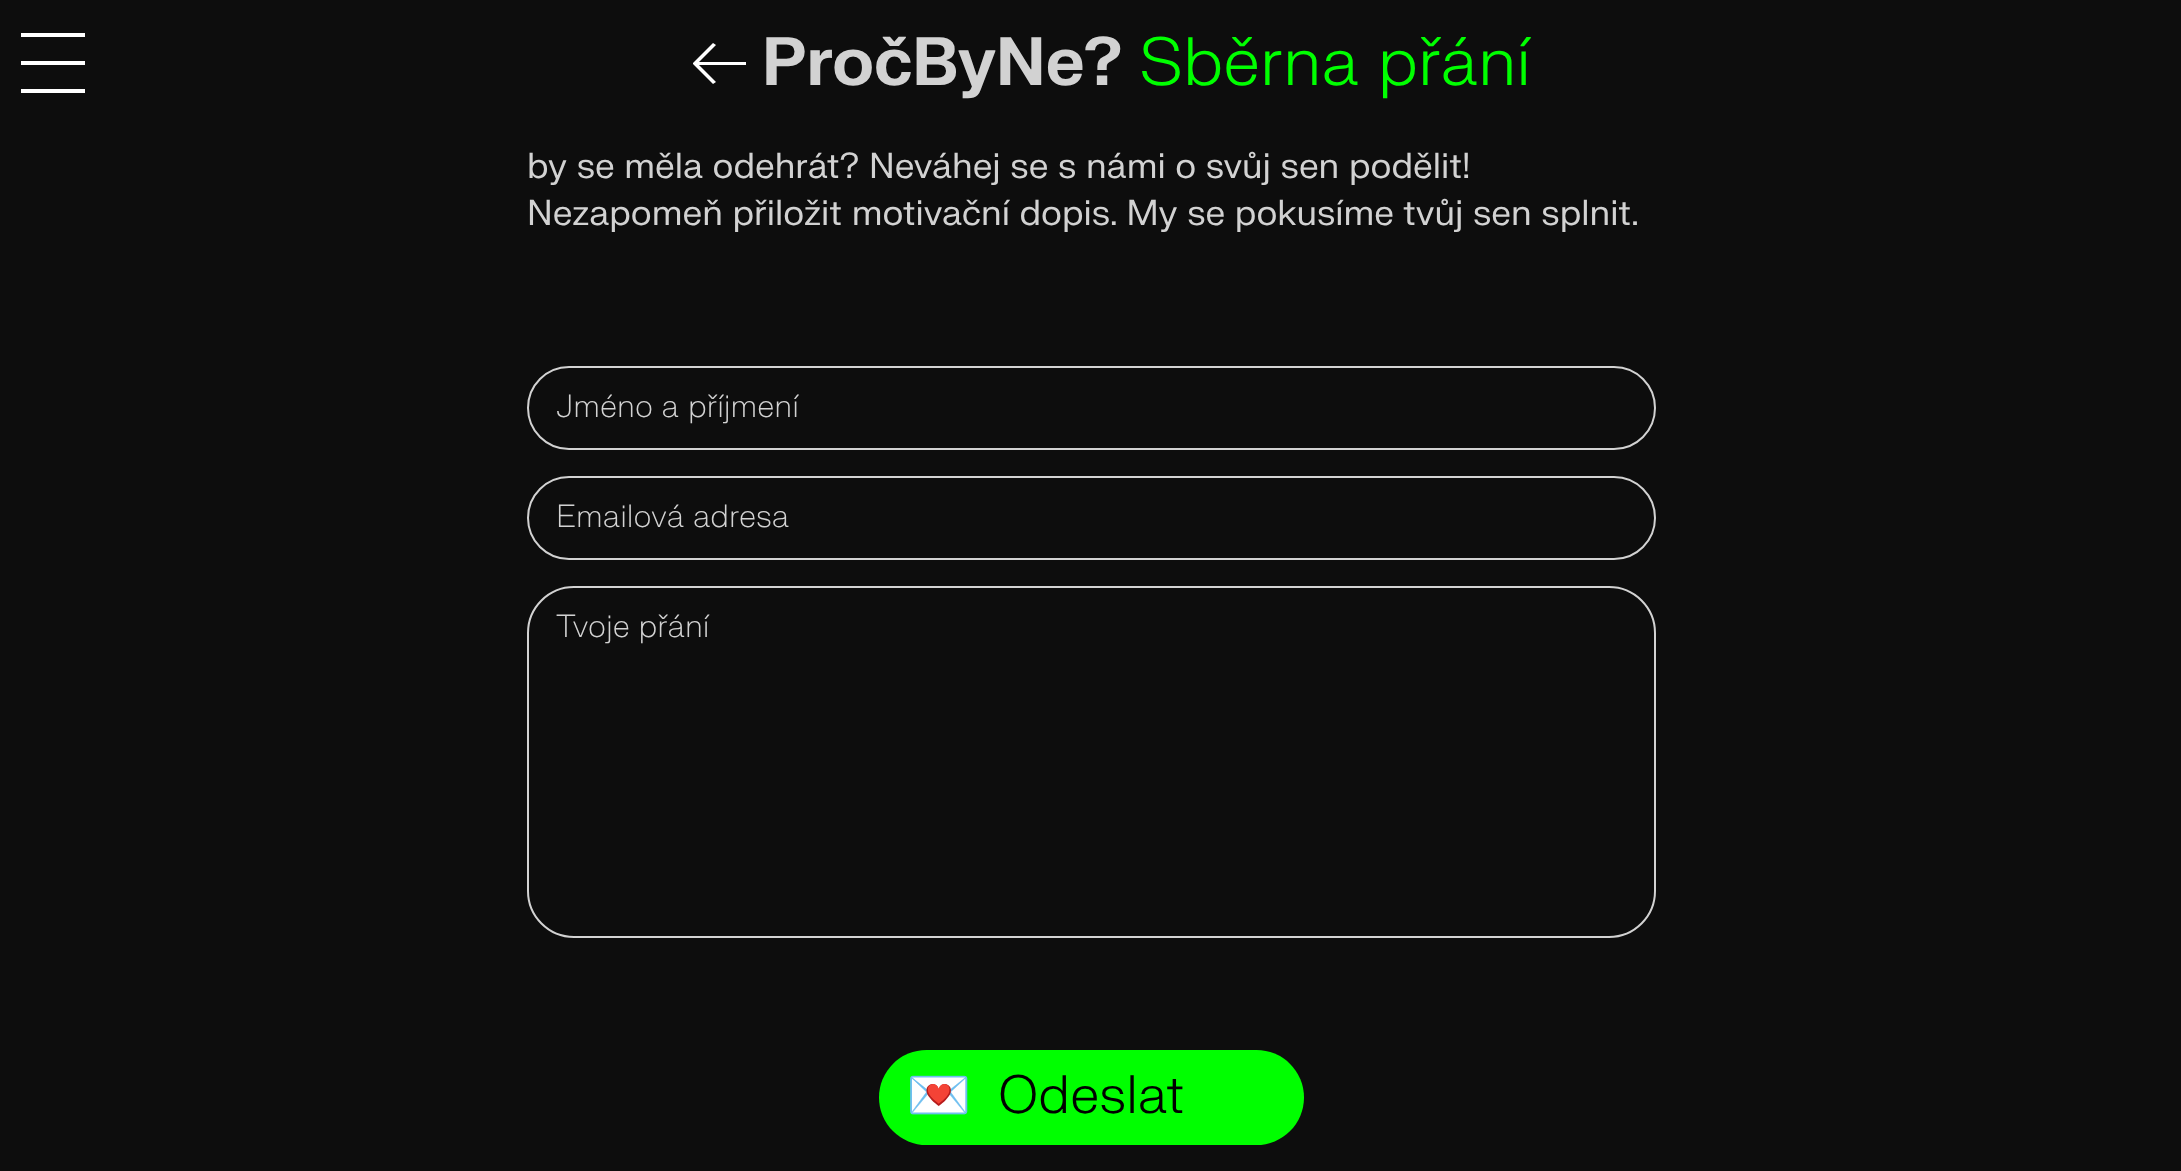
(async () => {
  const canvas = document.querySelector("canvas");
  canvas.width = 2181;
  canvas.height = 1171;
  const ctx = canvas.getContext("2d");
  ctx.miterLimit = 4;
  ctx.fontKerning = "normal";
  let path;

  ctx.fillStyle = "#0d0d0d";
  ctx.fillRect(0, 0, 2181, 1171);
  for (const [x, y, w, h, color] of [
    [21, 89, 64, 4, "#ffffff"],
    [21, 33, 64, 4, "#ffffff"],
    [21, 61, 64, 4, "#ffffff"],
  ]) {
    ctx.fillStyle = color;
    ctx.fillRect(x, y, w, h);
  }
  path = new Path2D("M716 45L699 62H746V65H699L716 82L713 84L693 64V63L713 43Z");
  ctx.fill(path);
  ctx.beginPath();
  ctx.roundRect(528, 367, 1127, 82, 41);
  ctx.strokeStyle = "#d2d2d2";
  ctx.lineWidth = 2;
  ctx.stroke();
  ctx.beginPath();
  ctx.roundRect(528, 477, 1127, 82, 41);
  ctx.stroke();
  ctx.beginPath();
  ctx.roundRect(528, 587, 1127, 350, 46);
  ctx.stroke();
  ctx.fillStyle = "#00ff00";
  ctx.beginPath();
  ctx.roundRect(879, 1050, 425, 95, 47.5);
  ctx.fill();
  ctx.font = "bold 66.5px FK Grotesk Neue";
  ctx.fillStyle = "#d2d2d2";
  ctx.fillText("PročByNe?", 762, 85);
  ctx.font = "300 66.5px FK Grotesk Neue";
  ctx.fillStyle = "#00ff00";
  ctx.fillText("Sběrna přání", 1139, 85);
  ctx.font = "35.05px FK Grotesk Neue";
  ctx.fillStyle = "#d2d2d2";
  ctx.fillText("by se měla odehrát? Neváhej se s námi o svůj sen podělit!", 527, 178);
  ctx.fillText("Nezapomeň přiložit motivační dopis. My se pokusíme tvůj sen splnit.", 527, 225);
  ctx.font = "100 31.25px FK Grotesk Neue";
  for (const [text, x, y] of [
    ["Jméno a příjmení", 556, 417],
    ["Emailová adresa", 556, 527],
    ["Tvoje přání", 556, 637],
  ]) {
    ctx.fillText(text, x, y);
  }
  ctx.font = "52.5px Noto Color Emoji";
  ctx.fillStyle = "#000000";
  ctx.fillText("💌", 906, 1113);
  ctx.font = "300 52.5px FK Grotesk Neue";
  ctx.fillText("Odeslat", 998, 1113);
})();
